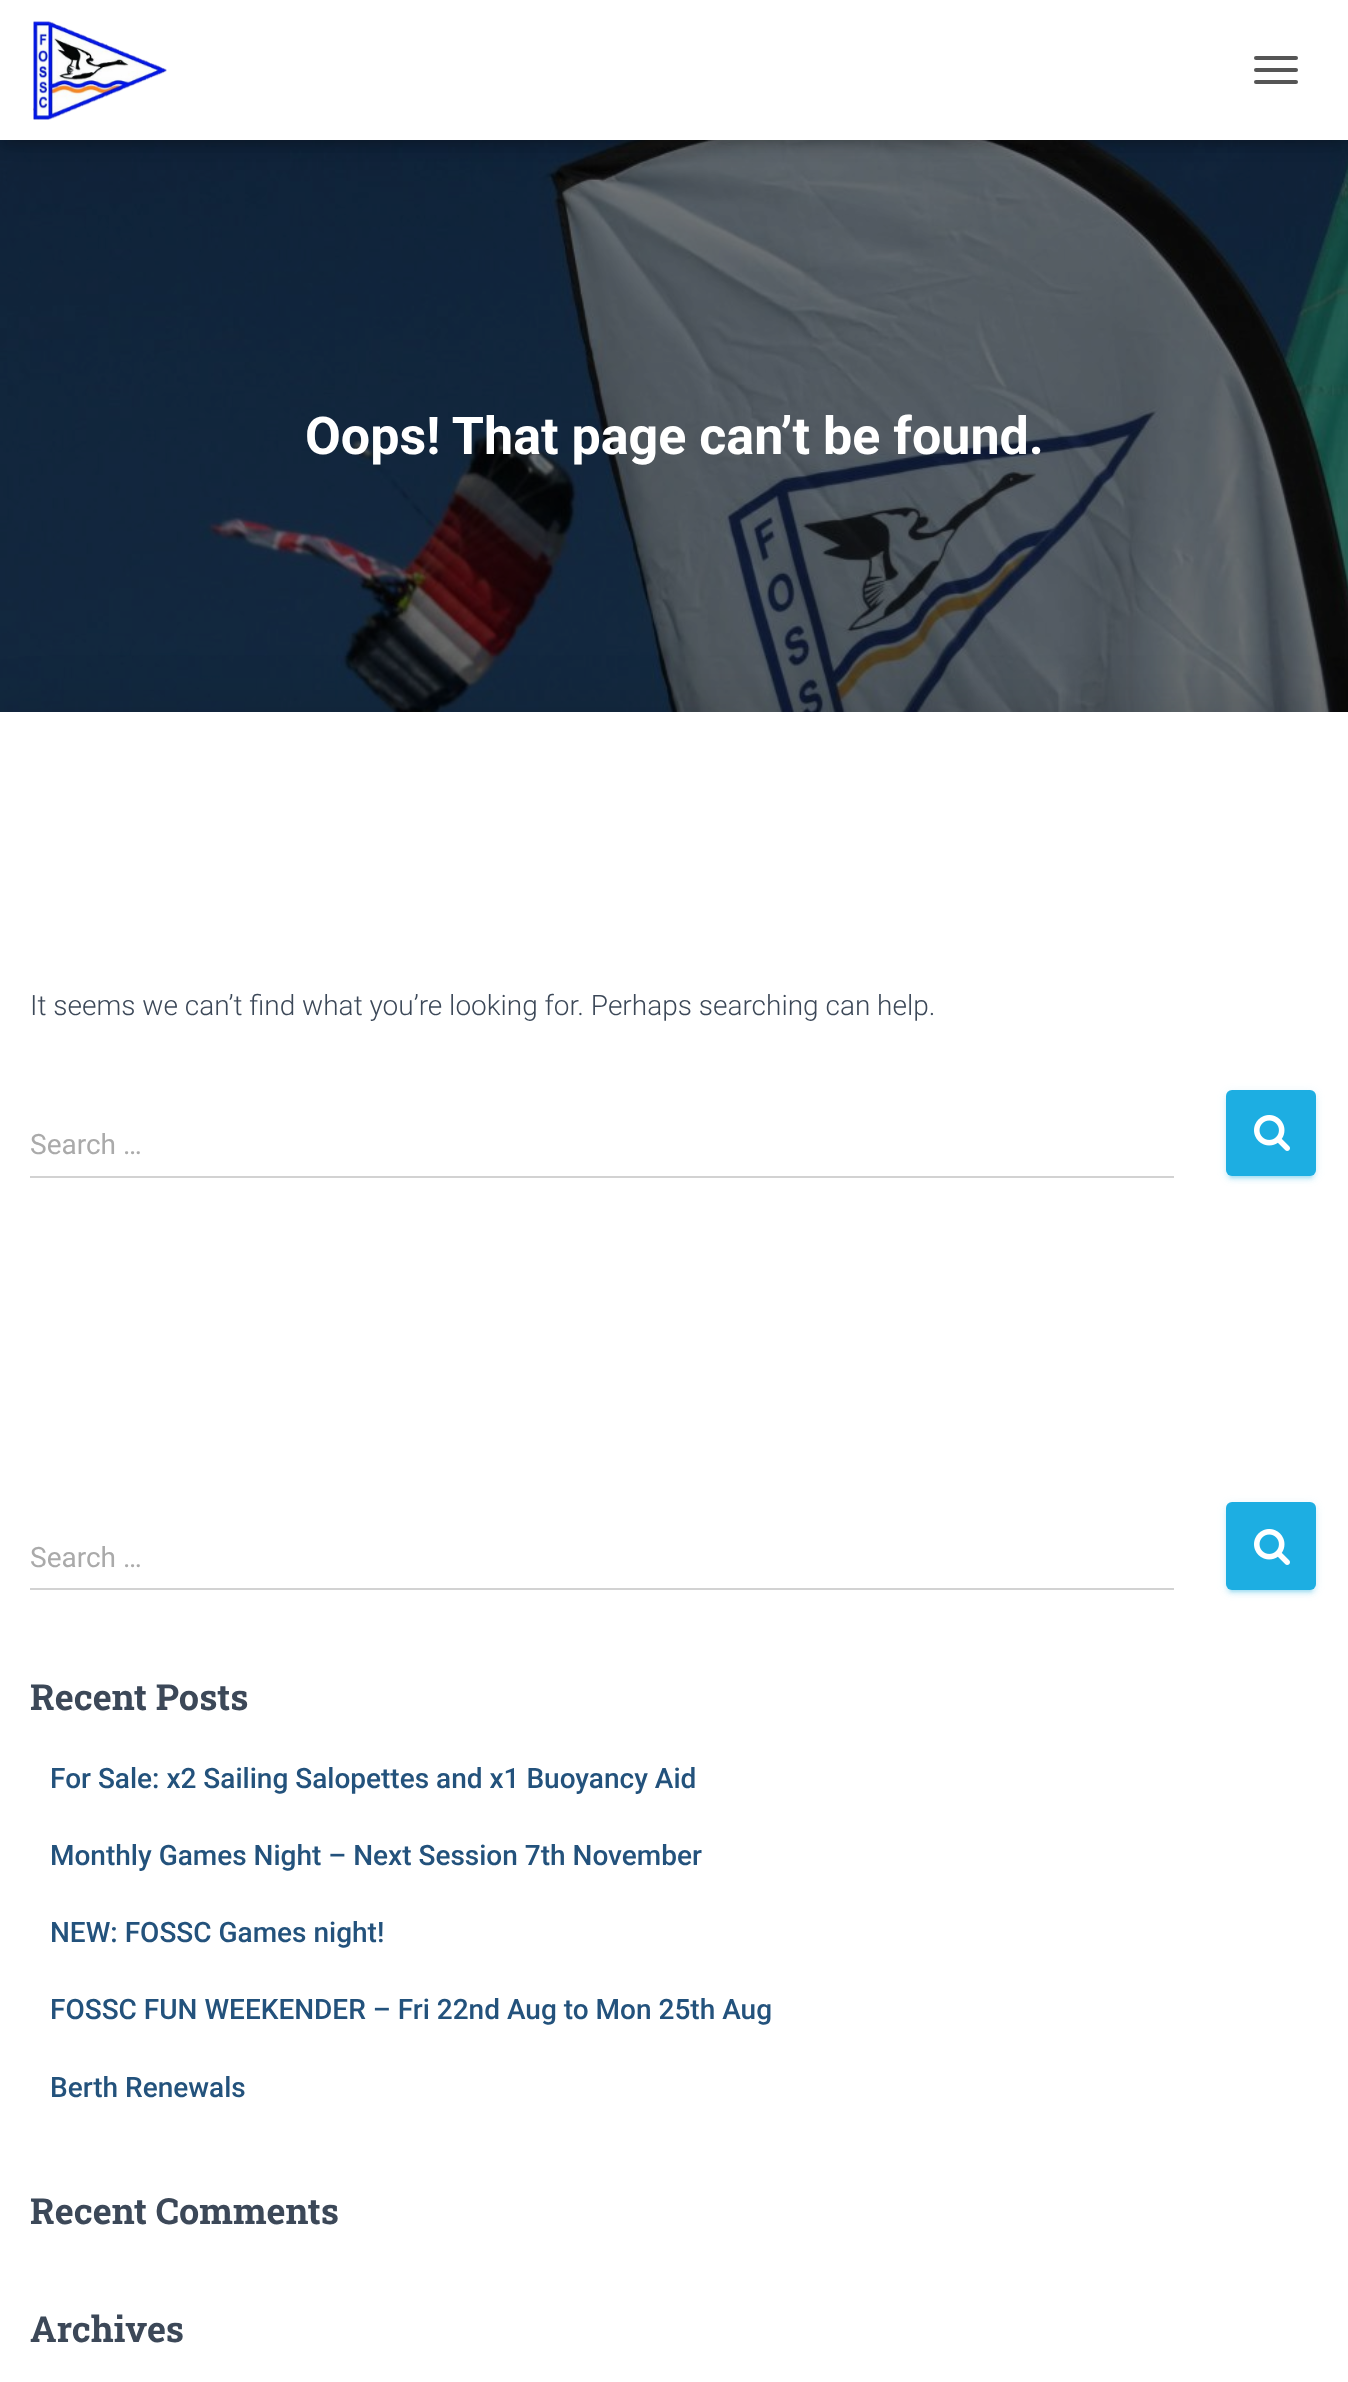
(async () => {
  const canvas = document.querySelector("canvas");
  canvas.width = 1348;
  canvas.height = 2382;
  const ctx = canvas.getContext("2d");
  ctx.miterLimit = 4;
  ctx.fontKerning = "normal";
  async function loadImage(src) {
    const img = new Image();
    img.src = src;
    await img.decode();
    return img;
  }

  ctx.fillStyle = "#ffffff";
  ctx.fillRect(0, 0, 1348, 2382);
  ctx.drawImage(await loadImage("img/2.png"), 0, 140, 1348, 572);
  ctx.fillStyle = "rgba(0, 0, 0, 0.1)";
  ctx.filter = "blur(5px)";
  ctx.beginPath();
  ctx.rect(4, 12, 1340, 132);
  ctx.fill();
  ctx.filter = "none";
  ctx.fillStyle = "rgba(0, 0, 0, 0.12)";
  ctx.filter = "blur(10px)";
  ctx.beginPath();
  ctx.rect(0, 2, 1348, 140);
  ctx.fill();
  ctx.filter = "none";
  ctx.fillStyle = "rgba(0, 0, 0, 0.42)";
  ctx.filter = "blur(10px)";
  ctx.beginPath();
  ctx.rect(12, 14, 1324, 116);
  ctx.fill();
  ctx.filter = "none";
  ctx.fillStyle = "#ffffff";
  ctx.fillRect(0, 0, 1348, 140);
  ctx.drawImage(await loadImage("img/1.png"), 33, 21, 134, 99);
  ctx.fillStyle = "#555555";
  ctx.beginPath();
  ctx.roundRect(1254, 56, 44, 4, 2);
  ctx.fill();
  ctx.beginPath();
  ctx.roundRect(1254, 68, 44, 4, 2);
  ctx.fill();
  ctx.beginPath();
  ctx.roundRect(1254, 80, 44, 4, 2);
  ctx.fill();
  ctx.fillStyle = "rgba(0, 0, 0, 0.12)";
  ctx.filter = "blur(30px)";
  ctx.beginPath();
  ctx.rect(-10, 714, 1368, 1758);
  ctx.fill();
  ctx.filter = "none";
  ctx.fillStyle = "#ffffff";
  ctx.fillRect(0, 712, 1348, 1670);
  ctx.fillStyle = "#d2d2d2";
  ctx.fillRect(30, 1176, 1144, 2);
  ctx.fillStyle = "rgba(29, 174, 226, 0.12)";
  ctx.filter = "blur(5px)";
  ctx.beginPath();
  ctx.roundRect(1226, 1092, 90, 86, 6);
  ctx.fill();
  ctx.filter = "none";
  ctx.fillStyle = "rgba(29, 174, 226, 0.2)";
  ctx.filter = "blur(1px)";
  ctx.beginPath();
  ctx.roundRect(1230, 1100, 82, 78, 2);
  ctx.fill();
  ctx.filter = "none";
  ctx.fillStyle = "rgba(29, 174, 226, 0.14)";
  ctx.filter = "blur(2px)";
  ctx.beginPath();
  ctx.roundRect(1226, 1094, 90, 86, 6);
  ctx.fill();
  ctx.filter = "none";
  ctx.fillStyle = "#1daee2";
  ctx.beginPath();
  ctx.roundRect(1226, 1090, 90, 86, 6);
  ctx.fill();
  ctx.drawImage(await loadImage("img/3.png"), 1254, 1115, 36, 36);
  ctx.fillStyle = "#d2d2d2";
  ctx.fillRect(30, 1588, 1144, 2);
  ctx.fillStyle = "rgba(29, 174, 226, 0.12)";
  ctx.filter = "blur(5px)";
  ctx.beginPath();
  ctx.roundRect(1226, 1504, 90, 88, 6);
  ctx.fill();
  ctx.filter = "none";
  ctx.fillStyle = "rgba(29, 174, 226, 0.2)";
  ctx.filter = "blur(1px)";
  ctx.beginPath();
  ctx.roundRect(1230, 1512, 82, 80, 2);
  ctx.fill();
  ctx.filter = "none";
  ctx.fillStyle = "rgba(29, 174, 226, 0.14)";
  ctx.filter = "blur(2px)";
  ctx.beginPath();
  ctx.roundRect(1226, 1506, 90, 88, 6);
  ctx.fill();
  ctx.filter = "none";
  ctx.fillStyle = "#1daee2";
  ctx.beginPath();
  ctx.roundRect(1226, 1502, 90, 88, 6);
  ctx.fill();
  ctx.drawImage(await loadImage("img/3.png"), 1254, 1529, 36, 36);
  ctx.font = "bold 52px Roboto";
  ctx.fillStyle = "#ffffff";
  ctx.fillText("Oops! That page can’t be found.", 305, 454);
  ctx.font = "300 28px Roboto";
  ctx.fillStyle = "#3c4858";
  ctx.fillText("It seems we can’t find what you’re looking for. Perhaps searching can help.", 30, 1015);
  ctx.font = "28px Roboto";
  ctx.fillStyle = "#aaaaaa";
  ctx.fillText("Search …", 30, 1154);
  ctx.fillText("Search …", 30, 1567);
  ctx.font = "bold 36px Roboto Slab";
  ctx.fillStyle = "#3c4858";
  ctx.fillText("Recent Posts", 30, 1710);
  ctx.font = "500 28px Roboto";
  ctx.fillStyle = "#23527c";
  for (const [text, x, y] of [
    ["For Sale: x2 Sailing Salopettes and x1 Buoyancy Aid", 50, 1788],
    ["Monthly Games Night – Next Session 7th November", 50, 1865],
    ["NEW: FOSSC Games night!", 50, 1942],
    ["FOSSC FUN WEEKENDER – Fri 22nd Aug to Mon 25th Aug", 50, 2019],
    ["Berth Renewals", 50, 2097],
  ]) {
    ctx.fillText(text, x, y);
  }
  ctx.font = "bold 36px Roboto Slab";
  ctx.fillStyle = "#3c4858";
  ctx.fillText("Recent Comments", 30, 2224);
  ctx.fillText("Archives", 30, 2342);
})();
